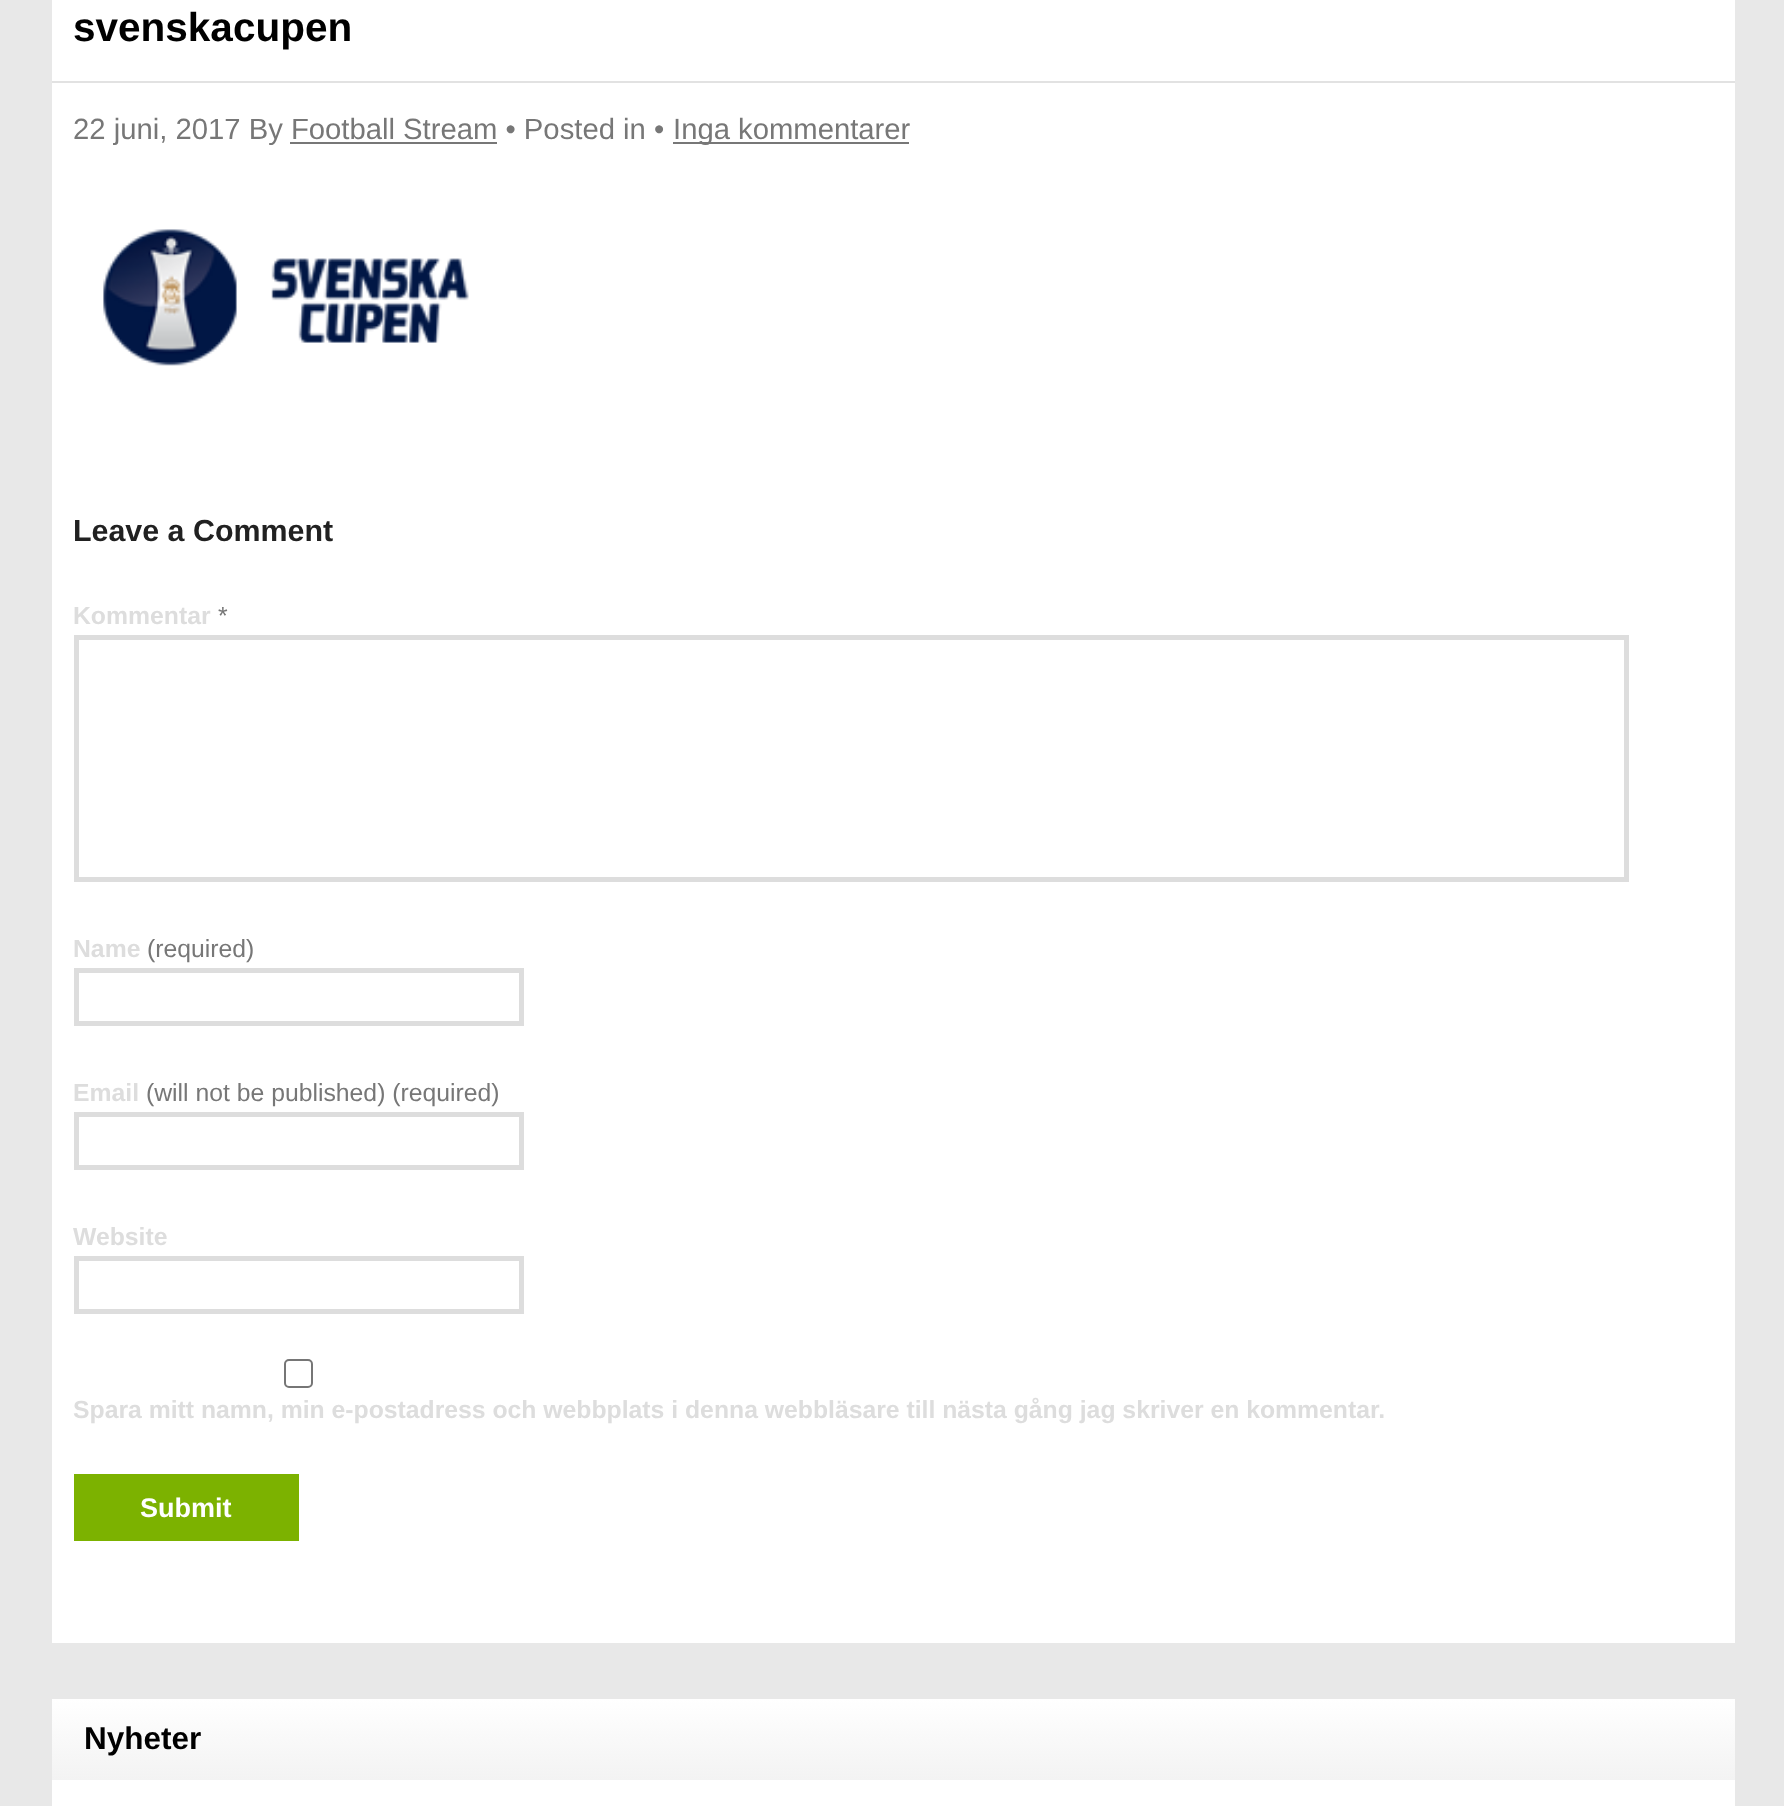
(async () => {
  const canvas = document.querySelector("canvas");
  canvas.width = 1784;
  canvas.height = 1806;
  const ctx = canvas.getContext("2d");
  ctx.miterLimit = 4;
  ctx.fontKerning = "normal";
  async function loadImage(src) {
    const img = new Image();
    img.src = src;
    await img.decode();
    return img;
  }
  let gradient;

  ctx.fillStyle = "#e8e8e8";
  ctx.fillRect(0, 0, 1784, 1806);
  for (const [x, y, w, h, color] of [
    [52, 0, 1683, 1643, "#ffffff"],
    [52, 81, 1683, 2, "#e2e2e2"],
    [673, 142, 236, 2, "#777777"],
    [290, 142, 207, 2, "#777777"],
  ]) {
    ctx.fillStyle = color;
    ctx.fillRect(x, y, w, h);
  }
  ctx.drawImage(await loadImage("img/1.png"), 103, 229, 366, 137);
  ctx.strokeStyle = "#dddddd";
  ctx.lineWidth = 5;
  ctx.strokeRect(76.5, 637.5, 1550, 242);
  ctx.strokeRect(76.5, 970.5, 445, 53);
  ctx.strokeRect(76.5, 1114.5, 445, 53);
  ctx.strokeRect(76.5, 1258.5, 445, 53);
  ctx.beginPath();
  ctx.roundRect(285, 1360, 27, 27, 4);
  ctx.strokeStyle = "#767676";
  ctx.lineWidth = 2;
  ctx.stroke();
  ctx.fillStyle = "#7cb200";
  ctx.fillRect(74, 1474, 225, 67);
  ctx.fillStyle = "#ffffff";
  ctx.fillRect(52, 1780, 1683, 26);
  gradient = ctx.createLinearGradient(893, 1699, 893, 1780);
  gradient.addColorStop(0, "#ffffff");
  gradient.addColorStop(1, "#f3f3f3");
  ctx.fillStyle = gradient;
  ctx.fillRect(52, 1699, 1683, 81);
  ctx.font = "bold 40.5px Arimo";
  ctx.fillStyle = "#000000";
  ctx.fillText("svenskacupen", 73, 41);
  ctx.font = "29.25px Arimo";
  ctx.fillStyle = "#777777";
  ctx.fillText("22 juni, 2017 By Football Stream • Posted in •", 73, 139);
  ctx.fillText("Inga kommentarer", 673, 139);
  ctx.font = "bold 30.4px Arimo";
  ctx.fillStyle = "#212121";
  ctx.fillText("Leave a Comment", 73, 541);
  ctx.font = "bold 24.75px Arimo";
  ctx.fillStyle = "#dddddd";
  ctx.fillText("Kommentar", 73, 624);
  ctx.font = "24.75px Arimo";
  ctx.fillStyle = "#777777";
  ctx.fillText("*", 218, 624);
  ctx.font = "bold 24.75px Arimo";
  ctx.fillStyle = "#dddddd";
  ctx.fillText("Name", 73, 957);
  ctx.font = "24.75px Arimo";
  ctx.fillStyle = "#777777";
  ctx.fillText("(required)", 147, 957);
  ctx.font = "bold 24.75px Arimo";
  ctx.fillStyle = "#dddddd";
  ctx.fillText("Email", 73, 1101);
  ctx.font = "24.75px Arimo";
  ctx.fillStyle = "#777777";
  ctx.fillText("(will not be published) (required)", 146, 1101);
  ctx.font = "bold 24.75px Arimo";
  ctx.fillStyle = "#dddddd";
  ctx.fillText("Website", 73, 1245);
  ctx.fillText("Spara mitt namn, min e-postadress och webbplats i denna webbläsare till nästa gång jag skriver en kommentar.", 73, 1418);
  ctx.font = "bold 27px Liberation Sans";
  ctx.fillStyle = "#ffffff";
  ctx.fillText("Submit", 140, 1517);
  ctx.font = "bold 31.5px Arimo";
  ctx.fillStyle = "#000000";
  ctx.fillText("Nyheter", 84, 1749);
})();
